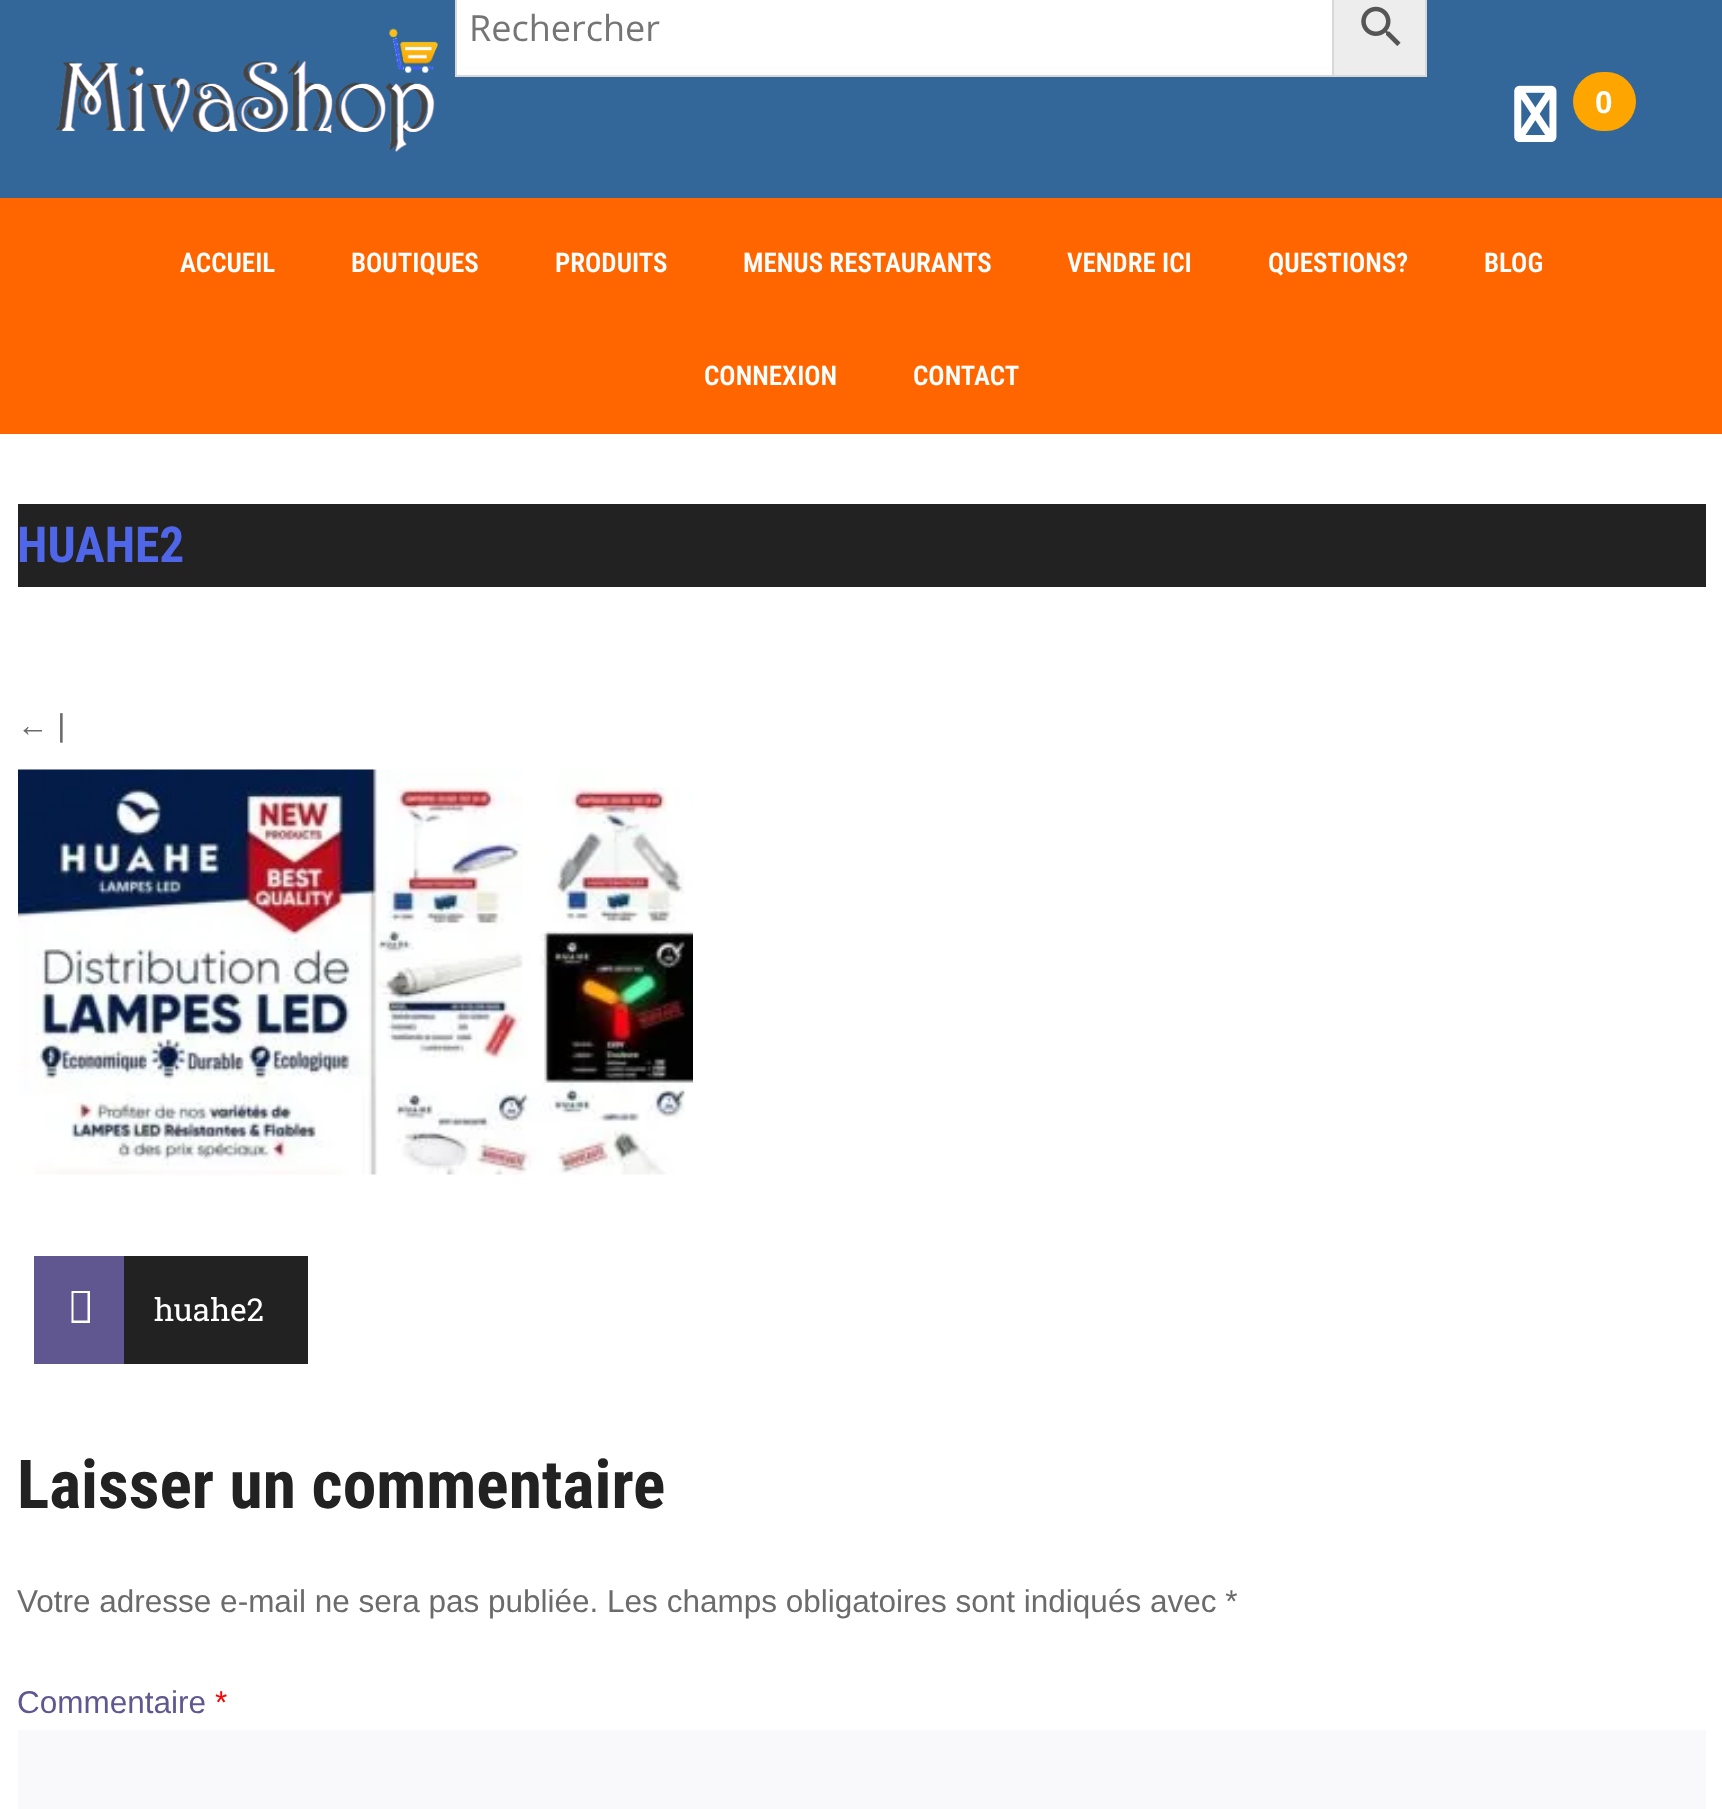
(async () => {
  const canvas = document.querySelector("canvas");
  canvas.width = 1722;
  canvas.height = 1809;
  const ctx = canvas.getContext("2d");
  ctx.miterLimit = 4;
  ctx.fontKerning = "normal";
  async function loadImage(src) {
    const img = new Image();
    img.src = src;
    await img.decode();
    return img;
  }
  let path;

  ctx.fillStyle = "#ffffff";
  ctx.fillRect(0, 0, 1722, 1809);
  ctx.fillStyle = "#336699";
  ctx.fillRect(0, 0, 1722, 198);
  ctx.drawImage(await loadImage("img/1.png"), 55, 28, 383, 124);
  ctx.fillStyle = "#ededed";
  ctx.beginPath();
  ctx.rect(1333, -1, 93, 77);
  ctx.fill();
  ctx.strokeStyle = "#d8d8d8";
  ctx.lineWidth = 2;
  ctx.stroke();
  ctx.fillStyle = "#ffffff";
  ctx.beginPath();
  ctx.rect(456, -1, 877, 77);
  ctx.fill();
  ctx.stroke();
  ctx.drawImage(await loadImage("img/2.png"), 1361, 6, 40, 40);
  ctx.drawImage(await loadImage("img/3.png"), 1514, 85, 43, 57);
  ctx.fillStyle = "#ffa500";
  ctx.beginPath();
  ctx.roundRect(1573, 72, 63, 59, 29.5);
  ctx.fill();
  ctx.fillStyle = "#ff6600";
  ctx.fillRect(0, 198, 1722, 236);
  ctx.fillStyle = "#222222";
  ctx.fillRect(18, 504, 1688, 83);
  ctx.drawImage(await loadImage("img/4.png"), 18, 769, 675, 406);
  ctx.fillRect(124, 1256, 184, 108);
  ctx.fillStyle = "#605790";
  ctx.fillRect(34, 1256, 90, 108);
  ctx.fillStyle = "#ffffff";
  path = new Path2D("M71.5 1323V1291H90V1323ZM73.5 1320.5H87.5V1293H73.5Z");
  ctx.fill(path);
  ctx.fillStyle = "#f9f8fb";
  ctx.fillRect(18, 1730, 1688, 79);
  ctx.font = "36px Open Sans";
  ctx.fillStyle = "#757575";
  ctx.fillText("Rechercher", 469, 41);
  ctx.font = "bold 31.5px Liberation Sans";
  ctx.fillStyle = "#ffffff";
  ctx.fillText("0", 1595, 113);
  ctx.font = "600 27px Roboto Condensed";
  for (const [text, x, y] of [
    ["ACCUEIL", 180, 272],
    ["BOUTIQUES", 351, 272],
    ["PRODUITS", 555, 272],
    ["MENUS RESTAURANTS", 743, 272],
    ["VENDRE ICI", 1067, 272],
    ["QUESTIONS?", 1268, 272],
    ["BLOG", 1484, 272],
    ["CONNEXION", 704, 385],
    ["CONTACT", 913, 385],
  ]) {
    ctx.fillText(text, x, y);
  }
  ctx.font = "bold 49.5px Roboto Condensed";
  ctx.fillStyle = "#5066e8";
  ctx.fillText("HUAHE2", 17, 562);
  ctx.font = "31.5px Liberation Sans";
  ctx.fillStyle = "#6b6b6b";
  ctx.fillText("← |", 17, 736);
  ctx.font = "31.5px Roboto Slab";
  ctx.fillStyle = "#ffffff";
  ctx.fillText("huahe2", 154, 1321);
  ctx.font = "bold 67.5px Roboto Condensed";
  ctx.fillStyle = "#222222";
  ctx.fillText("Laisser un commentaire", 17, 1508);
  ctx.font = "31.5px Liberation Sans";
  ctx.fillStyle = "#6b6b6b";
  ctx.fillText("Votre adresse e-mail ne sera pas publiée. Les champs obligatoires sont indiqués avec *", 17, 1612);
  ctx.fillStyle = "#605790";
  ctx.fillText("Commentaire", 17, 1713);
  ctx.fillStyle = "#ff0000";
  ctx.fillText("*", 215, 1713);
})();
